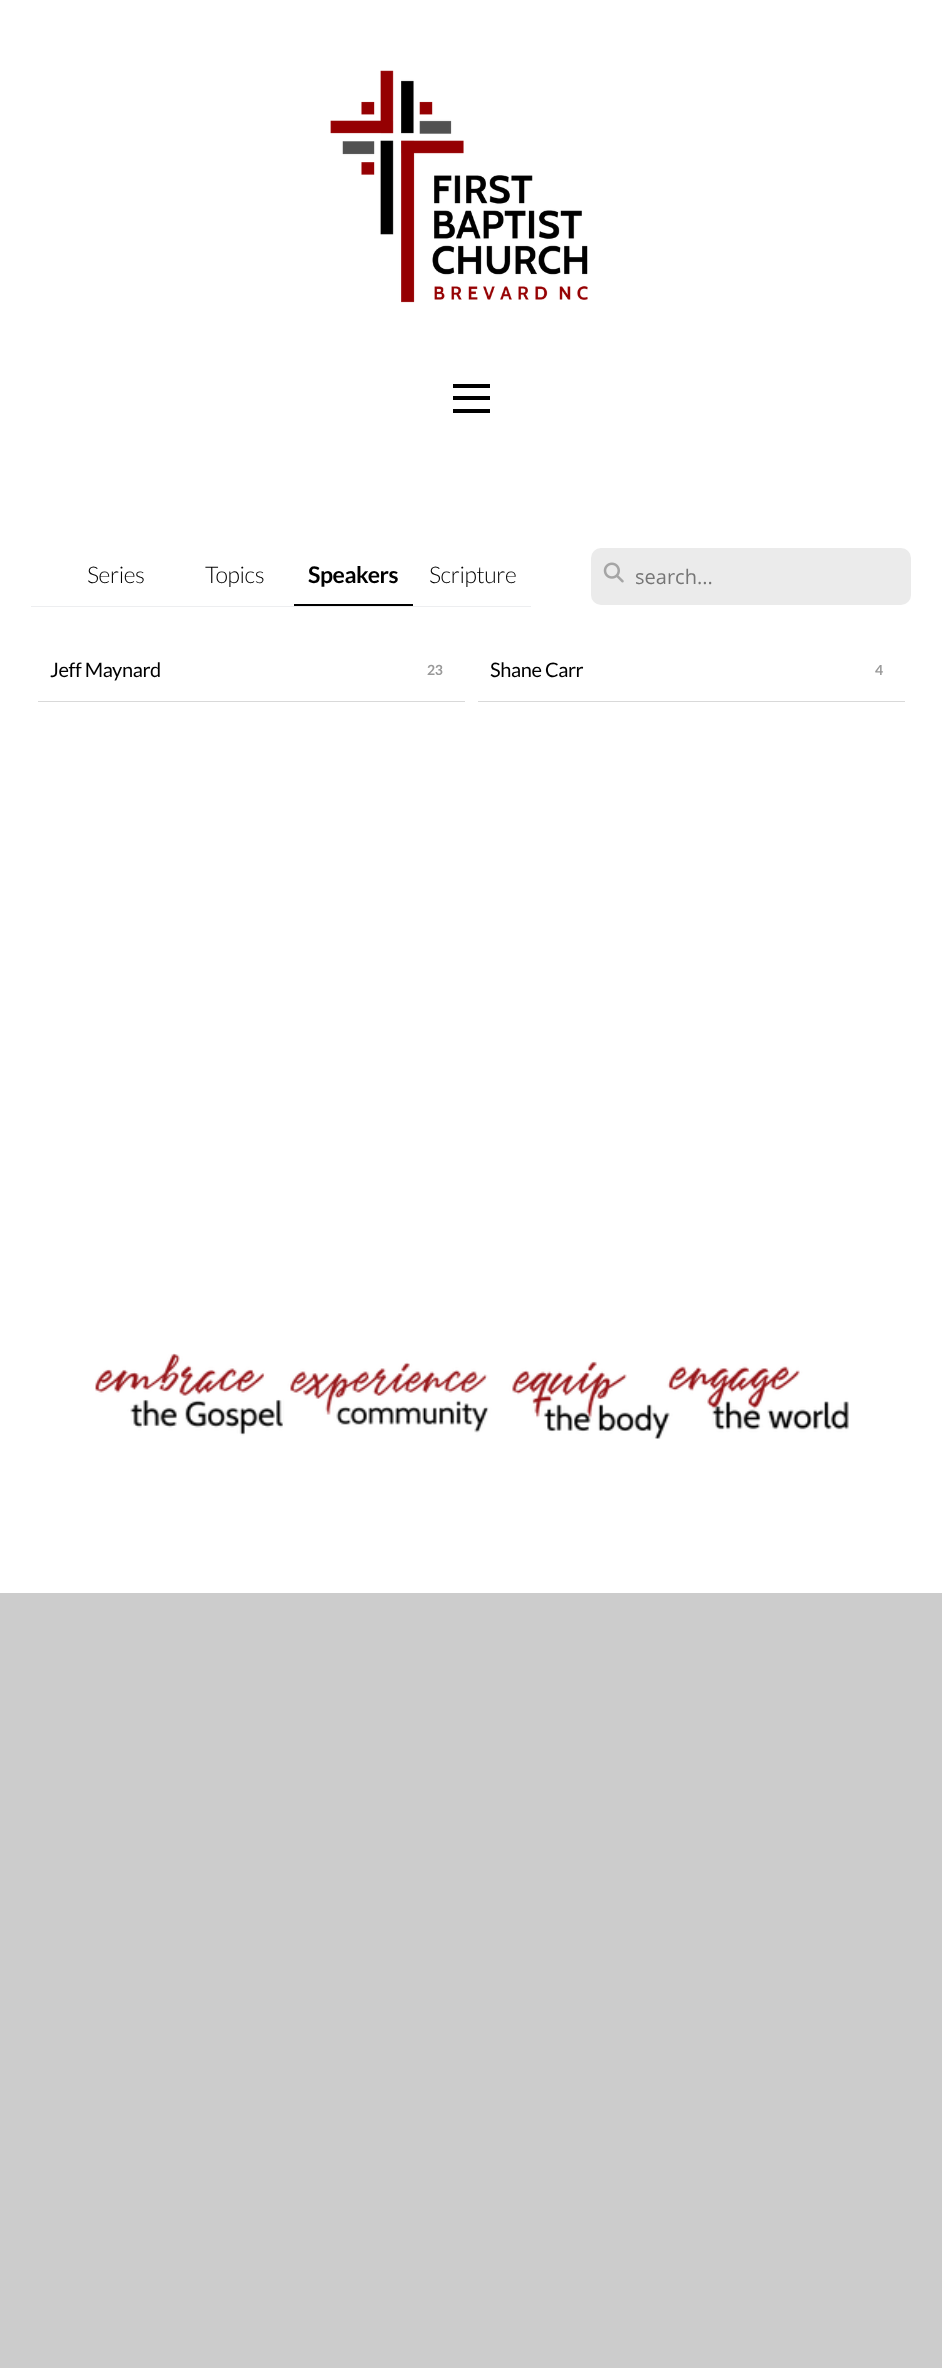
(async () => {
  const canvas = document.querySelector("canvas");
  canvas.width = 942;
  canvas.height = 2368;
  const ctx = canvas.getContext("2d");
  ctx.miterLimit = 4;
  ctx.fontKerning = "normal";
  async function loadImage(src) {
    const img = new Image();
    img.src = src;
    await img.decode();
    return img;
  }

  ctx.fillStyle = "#cccccc";
  ctx.fillRect(0, 0, 942, 2368);
  ctx.fillStyle = "#ffffff";
  ctx.fillRect(0, 0, 942, 1593);
  ctx.drawImage(await loadImage("img/1.png"), 330, 70, 258, 233);
  for (const [x, y, w, h, color] of [
    [453, 384, 37, 4, "#000000"],
    [453, 396, 37, 4, "#000000"],
    [453, 409, 37, 4, "#000000"],
    [31, 606, 500, 1, "#edeef0"],
    [294, 604, 119, 2, "#000000"],
  ]) {
    ctx.fillStyle = color;
    ctx.fillRect(x, y, w, h);
  }
  ctx.fillStyle = "#ebebeb";
  ctx.beginPath();
  ctx.roundRect(591, 548, 320, 57, 10);
  ctx.fill();
  ctx.drawImage(await loadImage("img/2.png"), 603, 562, 21, 21);
  ctx.fillStyle = "#d9d9d9";
  ctx.fillRect(38, 701, 427, 1);
  ctx.fillRect(478, 701, 427, 1);
  ctx.drawImage(await loadImage("img/3.png"), 95, 1353, 754, 86);
  ctx.letterSpacing = "-0.4px";
  ctx.font = "300 23px Lato";
  ctx.fillStyle = "#000000";
  ctx.fillText("Series", 87, 583);
  ctx.fillText("Topics", 205, 583);
  ctx.font = "bold 23px Lato";
  ctx.fillText("Speakers", 308, 583);
  ctx.font = "300 23px Lato";
  ctx.fillText("Scripture", 429, 583);
  ctx.letterSpacing = "0px";
  ctx.font = "20px Open Sans";
  ctx.fillStyle = "#767676";
  ctx.fillText("search...", 635, 584);
  ctx.letterSpacing = "-0.4px";
  ctx.font = "20px Lato";
  ctx.fillStyle = "#000000";
  ctx.fillText("Jeff Maynard", 50, 677);
  ctx.font = "bold 14px Lato";
  ctx.fillStyle = "#999999";
  ctx.fillText("23", 427, 675);
  ctx.font = "20px Lato";
  ctx.fillStyle = "#000000";
  ctx.fillText("Shane Carr", 490, 677);
  ctx.font = "bold 14px Lato";
  ctx.fillStyle = "#999999";
  ctx.fillText("4", 875, 675);
})();
